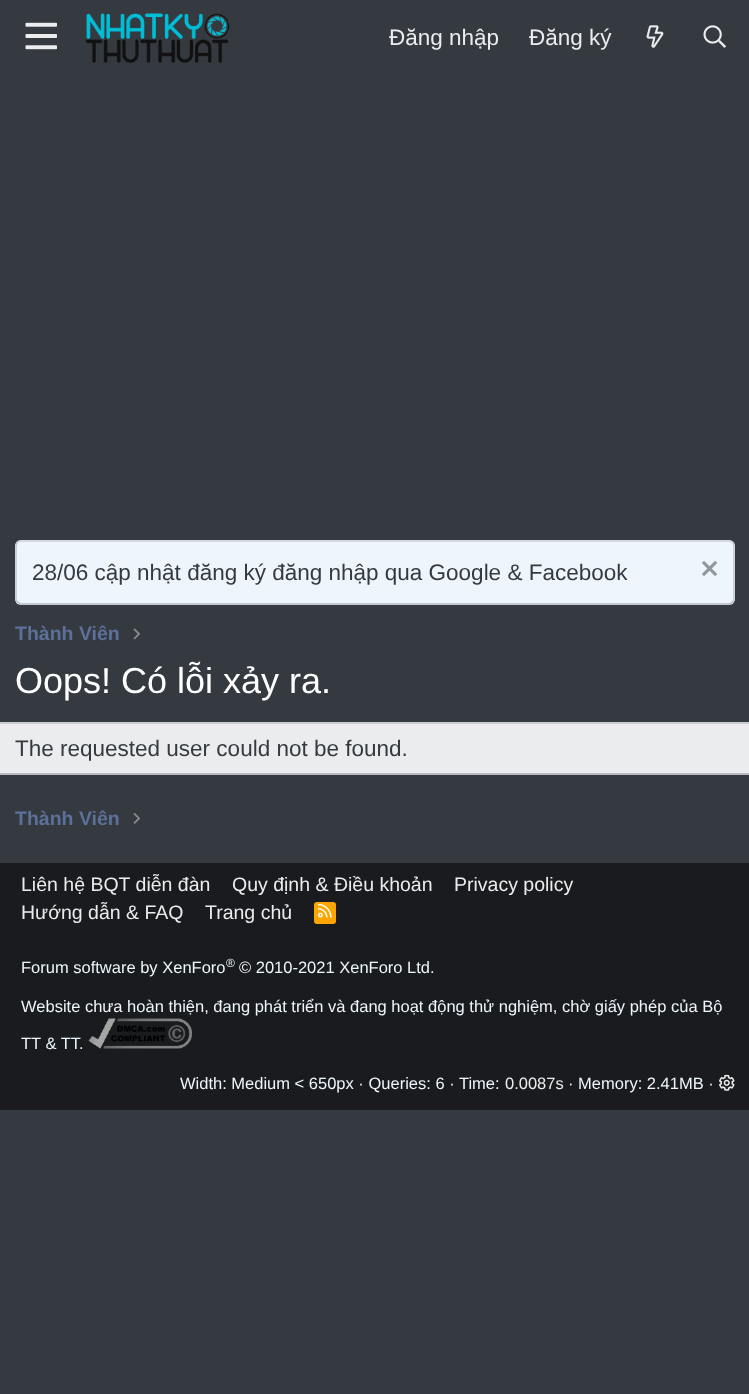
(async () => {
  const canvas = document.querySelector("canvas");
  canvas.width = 749;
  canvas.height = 1394;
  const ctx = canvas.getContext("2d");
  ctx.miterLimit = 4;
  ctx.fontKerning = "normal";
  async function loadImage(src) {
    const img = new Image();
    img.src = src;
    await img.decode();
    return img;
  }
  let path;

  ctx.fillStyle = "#343a40";
  ctx.fillRect(0, 0, 749, 1394);
  ctx.drawImage(await loadImage("img/1.png"), 25, 22, 32, 28);
  ctx.drawImage(await loadImage("img/2.png"), 85, 13, 145, 50);
  ctx.drawImage(await loadImage("img/3.png"), 646, 25, 18, 23);
  ctx.drawImage(await loadImage("img/4.png"), 703, 25, 23, 23);
  ctx.fillStyle = "#edf6fd";
  ctx.beginPath();
  ctx.roundRect(15, 540, 720, 65, 6);
  ctx.fill();
  path = new Path2D("M17.5 542.5C18.5 541.5 19.5 541 21 541H729C730.5 541 731.5 541.5 732.5 542.5");
  ctx.strokeStyle = "#cbcdd0";
  ctx.lineWidth = 1.5;
  ctx.stroke(path);
  path = new Path2D("M732.5 542.5C733.5 543.5 734 544.5 734 546V598.5C734 600 733.5 601 732.5 602");
  ctx.strokeStyle = "#c3c6c9";
  ctx.stroke(path);
  path = new Path2D("M732.5 602C731.5 603 730.5 604 729 604H21C19.5 604 18.5 603 17.5 602");
  ctx.strokeStyle = "#b5b9bd";
  ctx.stroke(path);
  path = new Path2D("M17.5 602C16.5 601 16 600 16 598.5V546C16 544.5 16.5 543.5 17.5 542.5");
  ctx.strokeStyle = "#c3c6c9";
  ctx.stroke(path);
  ctx.drawImage(await loadImage("img/5.png"), 702, 561, 15, 15);
  ctx.drawImage(await loadImage("img/6.png"), 133, 628, 7, 12);
  for (const [x, y, w, h, color] of [
    [0, 724, 749, 49, "#ebeced"],
    [0, 722, 749, 2, "#cbcdd0"],
    [0, 773, 749, 2, "#b5b9bd"],
  ]) {
    ctx.fillStyle = color;
    ctx.fillRect(x, y, w, h);
  }
  ctx.drawImage(await loadImage("img/7.png"), 133, 813, 7, 11);
  ctx.fillStyle = "#191b1e";
  ctx.fillRect(0, 863, 749, 247);
  ctx.fillStyle = "#ffa500";
  ctx.beginPath();
  ctx.roundRect(314, 902, 22, 22, 3);
  ctx.fill();
  ctx.drawImage(await loadImage("img/8.png"), 318, 903, 14, 15);
  ctx.drawImage(await loadImage("img/9.png"), 88, 1018, 104, 31);
  ctx.drawImage(await loadImage("img/10.png"), 719, 1074, 16, 17);
  ctx.font = "22.5px Liberation Sans";
  ctx.fillStyle = "#ebeced";
  ctx.fillText("Đăng nhập", 389, 45);
  ctx.fillText("Đăng ký", 529, 45);
  ctx.fillStyle = "#343a40";
  ctx.fillText("28/06 cập nhật đăng ký đăng nhập qua Google & Facebook", 32, 580);
  ctx.font = "bold 19.5px Liberation Sans";
  ctx.fillStyle = "#5c7099";
  ctx.fillText("Thành Viên", 15, 640);
  ctx.font = "36px Liberation Sans";
  ctx.fillStyle = "#ffffff";
  ctx.fillText("Oops! Có lỗi xảy ra.", 15, 693);
  ctx.font = "22.5px Liberation Sans";
  ctx.fillStyle = "#343a40";
  ctx.fillText("The requested user could not be found.", 15, 756);
  ctx.font = "bold 19.5px Liberation Sans";
  ctx.fillStyle = "#5c7099";
  ctx.fillText("Thành Viên", 15, 825);
  ctx.font = "19.5px Liberation Sans";
  ctx.fillStyle = "#ebeced";
  for (const [text, x, y] of [
    ["Liên hệ BQT diễn đàn", 21, 891],
    ["Quy định & Điều khoản", 232, 891],
    ["Privacy policy", 454, 891],
    ["Hướng dẫn & FAQ", 21, 919],
    ["Trang chủ", 205, 919],
  ]) {
    ctx.fillText(text, x, y);
  }
  ctx.font = "16.5px Liberation Sans";
  ctx.fillStyle = "#edf6fd";
  ctx.fillText("Forum software by XenForo", 21, 973);
  ctx.font = "12px Liberation Sans";
  ctx.fillText("®", 226, 967);
  ctx.font = "16.5px Liberation Sans";
  for (const [text, x, y] of [
    ["© 2010-2021 XenForo Ltd.", 239, 973],
    ["Website chưa hoàn thiện, đang phát triển và đang hoạt động thử nghiệm, chờ giấy phép của Bộ", 21, 1012],
    ["TT & TT.", 21, 1049],
    ["Width: Medium < 650px · Queries: 6 · Time:", 180, 1089],
  ]) {
    ctx.fillText(text, x, y);
  }
  ctx.fillStyle = "#ebeced";
  ctx.fillText("0.0087s", 505, 1089);
  ctx.fillStyle = "#edf6fd";
  ctx.fillText("· Memory: 2.41MB ·", 568, 1089);
})();
